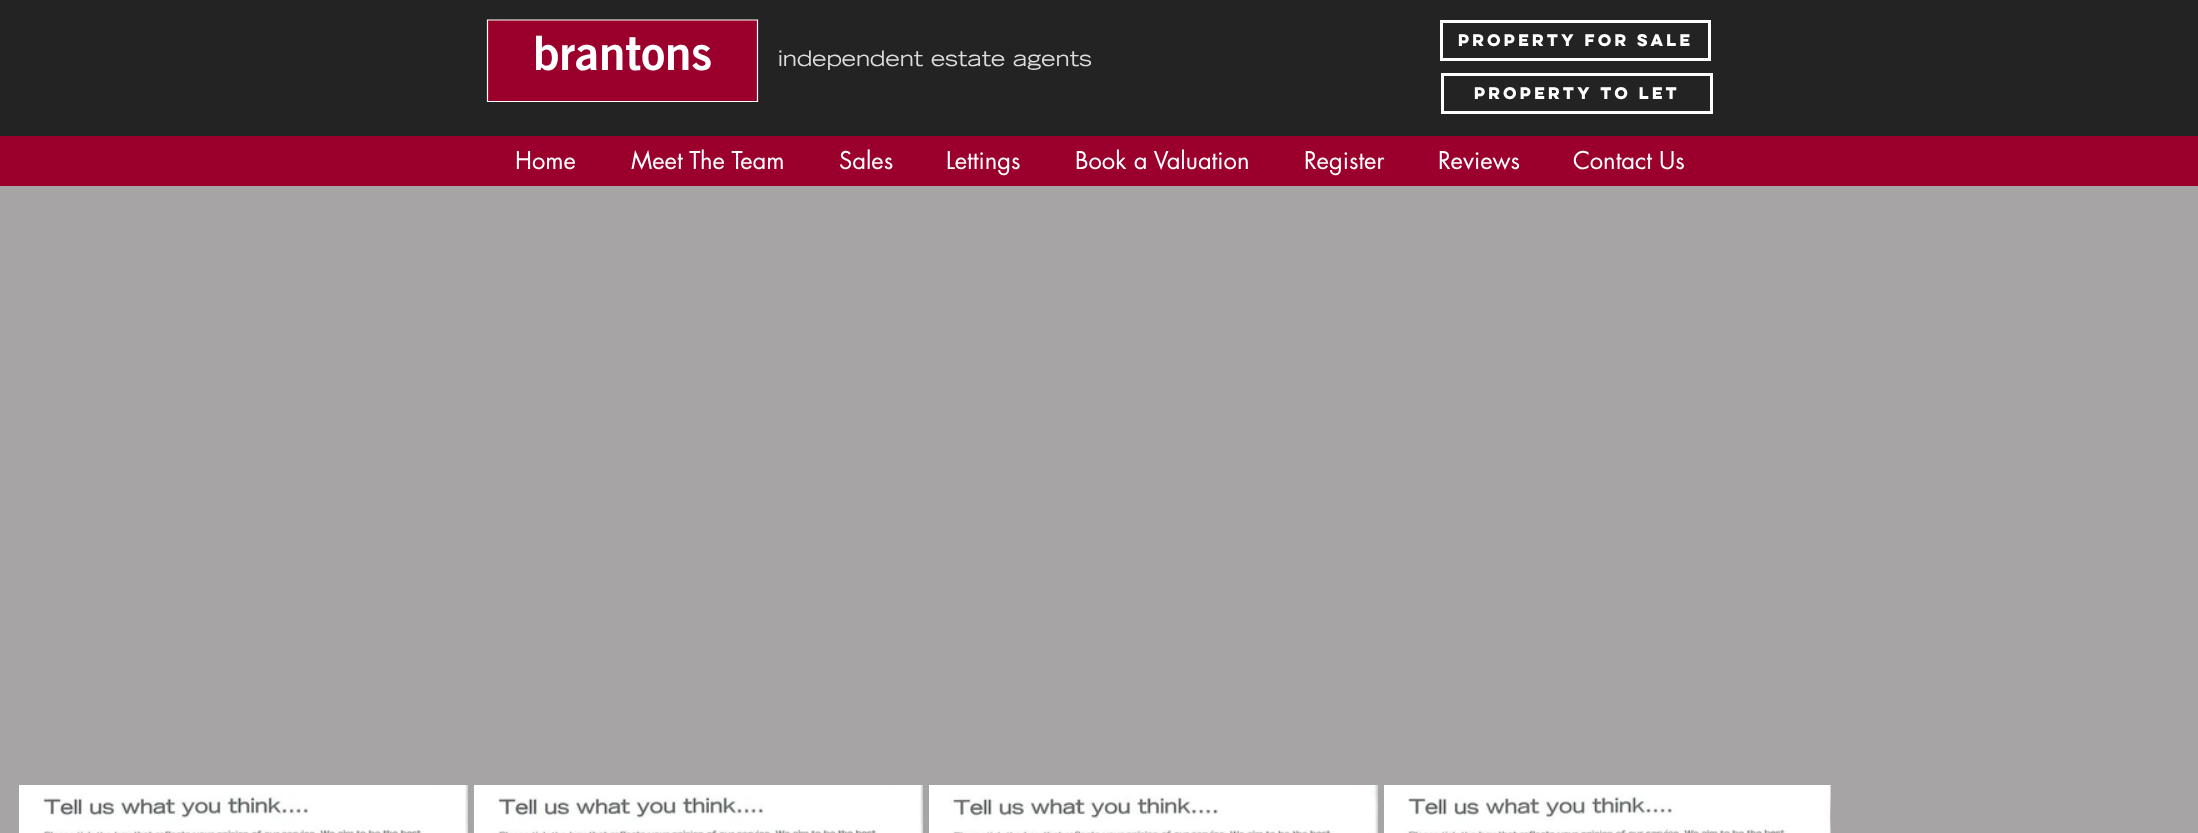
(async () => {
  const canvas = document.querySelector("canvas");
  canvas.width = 2198;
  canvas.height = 833;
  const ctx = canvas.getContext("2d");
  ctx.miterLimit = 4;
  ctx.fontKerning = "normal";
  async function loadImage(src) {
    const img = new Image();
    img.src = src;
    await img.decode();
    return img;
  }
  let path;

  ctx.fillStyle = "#a6a4a4";
  ctx.fillRect(0, 0, 2198, 833);
  ctx.fillStyle = "#242323";
  ctx.fillRect(0, 0, 2198, 136);
  ctx.fillStyle = "#9b002d";
  ctx.fillRect(488, 20, 269, 81);
  path = new Path2D("M757.5 20V101.5H487.5V20Z");
  ctx.strokeStyle = "#ffffff";
  ctx.lineWidth = 1.2;
  ctx.stroke(path);
  ctx.lineWidth = 3;
  ctx.strokeRect(1441.5, 21.5, 268, 38);
  ctx.strokeRect(1442.5, 74.5, 269, 38);
  ctx.fillRect(0, 136, 2198, 50);
  ctx.drawImage(await loadImage("img/1.png"), 19, 785, 449, 48);
  ctx.drawImage(await loadImage("img/2.png"), 474, 785, 449, 48);
  ctx.drawImage(await loadImage("img/3.png"), 929, 785, 449, 48);
  ctx.drawImage(await loadImage("img/4.png"), 1384, 785, 447, 48);
  ctx.font = "bold 47.5px Trade Gothic";
  ctx.fillStyle = "#ffffff";
  ctx.fillText("brantons", 533, 70);
  ctx.font = "21.25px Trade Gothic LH";
  ctx.fillStyle = "#dedddd";
  ctx.fillText("independent estate agents", 778, 66);
  ctx.font = "bold 15px 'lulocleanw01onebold'";
  ctx.fillStyle = "#ffffff";
  ctx.fillText("Property For Sale", 1458, 46);
  ctx.fillText("Property To Let", 1474, 99);
  ctx.font = "23.75px futura";
  for (const [text, x, y] of [
    ["Home", 515, 169],
    ["Meet The Team", 631, 169],
    ["Sales", 839, 169],
    ["Lettings", 946, 169],
    ["Book a Valuation", 1075, 169],
    ["Register", 1304, 169],
    ["Reviews", 1438, 169],
    ["Contact Us", 1573, 169],
  ]) {
    ctx.fillText(text, x, y);
  }
})();
